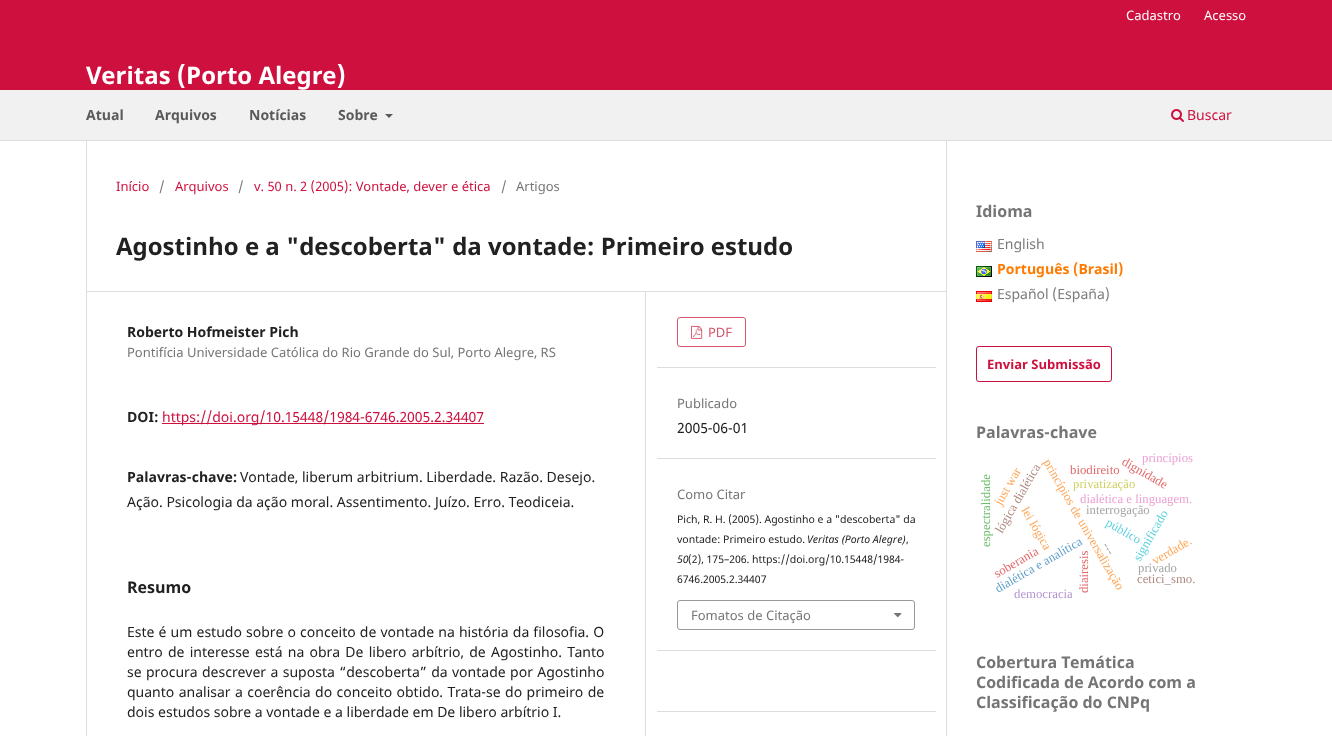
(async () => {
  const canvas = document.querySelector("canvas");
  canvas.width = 1332;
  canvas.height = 736;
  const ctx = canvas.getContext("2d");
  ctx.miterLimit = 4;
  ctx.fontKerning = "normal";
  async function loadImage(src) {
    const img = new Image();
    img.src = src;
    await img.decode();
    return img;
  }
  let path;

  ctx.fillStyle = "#ffffff";
  ctx.fillRect(0, 0, 1332, 736);
  for (const [x, y, w, h, color] of [
    [0, 0, 1332, 90, "#ce103f"],
    [0, 140, 1332, 1, "#dddddd"],
    [0, 90, 1332, 50, "#f1f1f1"],
  ]) {
    ctx.fillStyle = color;
    ctx.fillRect(x, y, w, h);
  }
  ctx.fillStyle = "#5a5a5a";
  path = new Path2D("M385 114H393L389 118Z");
  ctx.fill(path);
  ctx.drawImage(await loadImage("img/1.png"), 1171, 109, 13, 13);
  for (const [x, y, w, h, color] of [
    [86, 291, 860, 1, "#dddddd"],
    [86, 141, 1, 595, "#dddddd"],
    [645, 292, 1, 444, "#dddddd"],
    [162, 423, 322, 1, "#ce103f"],
    [657, 367, 279, 1, "#dddddd"],
  ]) {
    ctx.fillStyle = color;
    ctx.fillRect(x, y, w, h);
  }
  ctx.beginPath();
  ctx.roundRect(677.5, 317.5, 68, 29, 2.5);
  ctx.strokeStyle = "#d6546c";
  ctx.stroke();
  ctx.drawImage(await loadImage("img/2.png"), 691, 325, 12, 14);
  ctx.fillRect(657, 458, 279, 1);
  ctx.fillRect(657, 650, 279, 1);
  ctx.beginPath();
  ctx.roundRect(677.5, 600.5, 237, 29, 2.5);
  ctx.strokeStyle = "#999999";
  ctx.stroke();
  ctx.drawImage(await loadImage("img/3.png"), 894, 613, 8, 5);
  ctx.fillRect(657, 711, 279, 1);
  ctx.fillRect(946, 141, 1, 595);
  ctx.drawImage(await loadImage("img/4.png"), 976, 241, 16, 11);
  ctx.drawImage(await loadImage("img/5.png"), 976, 266, 16, 11);
  ctx.drawImage(await loadImage("img/6.png"), 976, 291, 16, 11);
  ctx.beginPath();
  ctx.roundRect(976.5, 346.5, 135, 35, 2.5);
  ctx.strokeStyle = "#ce103f";
  ctx.stroke();
  ctx.font = "13px Noto Sans";
  ctx.fillStyle = "#ffffff";
  ctx.fillText("Cadastro", 1126, 20);
  ctx.fillText("Acesso", 1204, 20);
  ctx.font = "bold 14px Noto Sans";
  ctx.fillStyle = "#5a5a5a";
  for (const [text, x, y] of [
    ["Atual", 86, 120],
    ["Arquivos", 155, 120],
    ["Notícias", 249, 120],
    ["Sobre", 338, 120],
  ]) {
    ctx.fillText(text, x, y);
  }
  ctx.font = "14px Noto Sans";
  ctx.fillStyle = "#ce103f";
  ctx.fillText("Buscar", 1187, 120);
  ctx.font = "bold 24px Noto Sans";
  ctx.fillStyle = "#ffffff";
  ctx.fillText("Veritas (Porto Alegre)", 86, 84);
  ctx.font = "13px Noto Sans";
  ctx.fillStyle = "#ce103f";
  ctx.fillText("Início", 116, 191);
  ctx.fillStyle = "#757575";
  ctx.fillText("/", 159, 191);
  ctx.fillStyle = "#ce103f";
  ctx.fillText("Arquivos", 175, 191);
  ctx.fillStyle = "#757575";
  ctx.fillText("/", 238, 191);
  ctx.fillStyle = "#ce103f";
  ctx.fillText("v. 50 n. 2 (2005): Vontade, dever e ética", 254, 191);
  ctx.fillStyle = "#757575";
  ctx.fillText("/", 501, 191);
  ctx.fillText("Artigos", 516, 191);
  ctx.font = "bold 24px Noto Sans";
  ctx.fillStyle = "#212121";
  ctx.fillText("Agostinho e a \"descoberta\" da vontade: Primeiro estudo", 116, 255);
  ctx.font = "bold 14px Noto Sans";
  ctx.fillText("Roberto Hofmeister Pich", 127, 337);
  ctx.font = "13px Noto Sans";
  ctx.fillStyle = "#757575";
  ctx.fillText("Pontifícia Universidade Católica do Rio Grande do Sul, Porto Alegre, RS", 127, 357);
  ctx.font = "bold 14px Noto Sans";
  ctx.fillStyle = "#212121";
  ctx.fillText("DOI:", 127, 422);
  ctx.font = "14px Noto Sans";
  ctx.fillStyle = "#ce103f";
  ctx.fillText("https://doi.org/10.15448/1984-6746.2005.2.34407", 162, 422);
  ctx.font = "bold 14px Noto Sans";
  ctx.fillStyle = "#212121";
  ctx.fillText("Palavras-chave:", 127, 482);
  ctx.font = "14px Noto Sans";
  ctx.fillText("Vontade, liberum arbitrium. Liberdade. Razão. Desejo.", 240, 482);
  ctx.fillText("Ação. Psicologia da ação moral. Assentimento. Juízo. Erro. Teodiceia.", 127, 507);
  ctx.font = "bold 16px Noto Sans";
  ctx.fillText("Resumo", 127, 593);
  ctx.wordSpacing = "0.5px";
  ctx.font = "14px Noto Sans";
  ctx.fillText("Este é um estudo sobre o conceito de vontade na história da filosofia. O", 127, 637);
  ctx.wordSpacing = "1.6px";
  ctx.fillText("entro de interesse está na obra De libero arbítrio, de Agostinho. Tanto", 127, 657);
  ctx.wordSpacing = "0.75px";
  ctx.fillText("se procura descrever a suposta “descoberta” da vontade por Agostinho", 127, 677);
  ctx.fillText("quanto analisar a coerência do conceito obtido. Trata-se do primeiro de", 127, 697);
  ctx.wordSpacing = "0px";
  ctx.fillText("dois estudos sobre a vontade e a liberdade em De libero arbítrio I.", 127, 717);
  ctx.font = "13px Noto Sans";
  ctx.fillStyle = "#d6546c";
  ctx.fillText("PDF", 708, 337);
  ctx.fillStyle = "#757575";
  ctx.fillText("Publicado", 677, 408);
  ctx.font = "14px Noto Sans";
  ctx.fillStyle = "#212121";
  ctx.fillText("2005-06-01", 677, 433);
  ctx.font = "13px Noto Sans";
  ctx.fillStyle = "#757575";
  ctx.fillText("Como Citar", 677, 499);
  ctx.font = "10.5px Noto Sans";
  ctx.fillStyle = "#212121";
  ctx.fillText("Pich, R. H. (2005). Agostinho e a \"descoberta\" da", 677, 523);
  ctx.fillText("vontade: Primeiro estudo.", 677, 543);
  ctx.font = "italic 10.5px Noto Sans";
  ctx.fillText("Veritas (Porto Alegre)", 807, 543);
  ctx.font = "10.5px Noto Sans";
  ctx.fillText(",", 906, 543);
  ctx.font = "italic 10.5px Noto Sans";
  ctx.fillText("50", 677, 563);
  ctx.font = "10.5px Noto Sans";
  ctx.fillText("(2), 175–206. https://doi.org/10.15448/1984-", 688, 563);
  ctx.fillText("6746.2005.2.34407", 677, 583);
  ctx.font = "13px Noto Sans";
  ctx.fillStyle = "#757575";
  ctx.fillText("Fomatos de Citação", 691, 620);
  ctx.font = "bold 16px Noto Sans";
  ctx.fillText("Idioma", 976, 217);
  ctx.font = "14px Noto Sans";
  ctx.fillStyle = "#7b7b7b";
  ctx.fillText("English", 997, 249);
  ctx.font = "bold 14px Noto Sans";
  ctx.fillStyle = "#ff7a00";
  ctx.fillText("Português (Brasil)", 997, 274);
  ctx.font = "14px Noto Sans";
  ctx.fillStyle = "#7b7b7b";
  ctx.fillText("Español (España)", 997, 299);
  ctx.font = "bold 13px Noto Sans";
  ctx.fillStyle = "#ce103f";
  ctx.fillText("Enviar Submissão", 987, 369);
  ctx.font = "bold 16px Noto Sans";
  ctx.fillStyle = "#757575";
  ctx.fillText("Palavras-chave", 976, 438);
  ctx.font = "12.75px Liberation Serif";
  ctx.fillStyle = "#af8981";
  ctx.save();
  ctx.translate(1002, 534);
  ctx.rotate(-60 * Math.PI / 180);
  ctx.fillText("lógica dialética", 0, 0);
  ctx.restore();
  ctx.fillStyle = "#6bbd6b";
  ctx.save();
  ctx.translate(990, 547);
  ctx.rotate(-90 * Math.PI / 180);
  ctx.fillText("espectralidade", 0, 0);
  ctx.restore();
  ctx.fillStyle = "#ffa556";
  ctx.save();
  ctx.translate(1001, 506);
  ctx.rotate(-60 * Math.PI / 180);
  ctx.fillText("just war", 0, 0);
  ctx.restore();
  ctx.fillStyle = "#5dd2dd";
  ctx.save();
  ctx.translate(1140, 562);
  ctx.rotate(-60 * Math.PI / 180);
  ctx.fillText("significado", 0, 0);
  ctx.restore();
  ctx.fillStyle = "#a5a5a5";
  ctx.save();
  ctx.translate(1102, 545);
  ctx.rotate(60 * Math.PI / 180);
  ctx.fillText("---", 0, 0);
  ctx.restore();
  ctx.fillStyle = "#ffa556";
  ctx.save();
  ctx.translate(1043, 462);
  ctx.rotate(60 * Math.PI / 180);
  ctx.fillText("princípios de universalização", 0, 0);
  ctx.restore();
  ctx.fillStyle = "#e26869";
  ctx.fillText("biodireito", 1070, 474);
  ctx.fillStyle = "#d0d164";
  ctx.fillText("privatização", 1073, 488);
  ctx.fillStyle = "#e26869";
  ctx.save();
  ctx.translate(1121, 464);
  ctx.rotate(30 * Math.PI / 180);
  ctx.fillText("dignidade", 0, 0);
  ctx.restore();
  ctx.fillStyle = "#eba0d4";
  ctx.fillText("princípios", 1142, 462);
  ctx.fillStyle = "#ffa556";
  ctx.save();
  ctx.translate(1021, 510);
  ctx.rotate(60 * Math.PI / 180);
  ctx.fillText("lei lógica", 0, 0);
  ctx.restore();
  ctx.fillStyle = "#a5a5a5";
  ctx.fillText("interrogação", 1086, 514);
  ctx.fillStyle = "#5dd2dd";
  ctx.save();
  ctx.translate(1105, 525);
  ctx.rotate(30 * Math.PI / 180);
  ctx.fillText("público", 0, 0);
  ctx.restore();
  ctx.fillStyle = "#62a0cb";
  ctx.save();
  ctx.translate(998, 593);
  ctx.rotate(-30 * Math.PI / 180);
  ctx.fillText("dialética e analítica", 0, 0);
  ctx.restore();
  ctx.fillStyle = "#eba0d4";
  ctx.fillText("dialética e linguagem.", 1080, 503);
  ctx.fillStyle = "#ffa556";
  ctx.save();
  ctx.translate(1155, 565);
  ctx.rotate(-30 * Math.PI / 180);
  ctx.fillText("verdade.", 0, 0);
  ctx.restore();
  ctx.fillStyle = "#e26869";
  ctx.save();
  ctx.translate(997, 578);
  ctx.rotate(-30 * Math.PI / 180);
  ctx.fillText("soberania", 0, 0);
  ctx.restore();
  ctx.save();
  ctx.translate(1088, 593);
  ctx.rotate(-90 * Math.PI / 180);
  ctx.fillText("diairesis", 0, 0);
  ctx.restore();
  ctx.fillStyle = "#a5a5a5";
  ctx.fillText("privado", 1138, 572);
  ctx.fillStyle = "#af8981";
  ctx.fillText("cetici_smo.", 1137, 583);
  ctx.fillStyle = "#b495d1";
  ctx.fillText("democracia", 1014, 598);
  ctx.font = "bold 16px Noto Sans";
  ctx.fillStyle = "#757575";
  for (const [text, x, y] of [
    ["Cobertura Temática", 976, 668],
    ["Codificada de Acordo com a", 976, 688],
    ["Classificação do CNPq", 976, 708],
  ]) {
    ctx.fillText(text, x, y);
  }
})();
